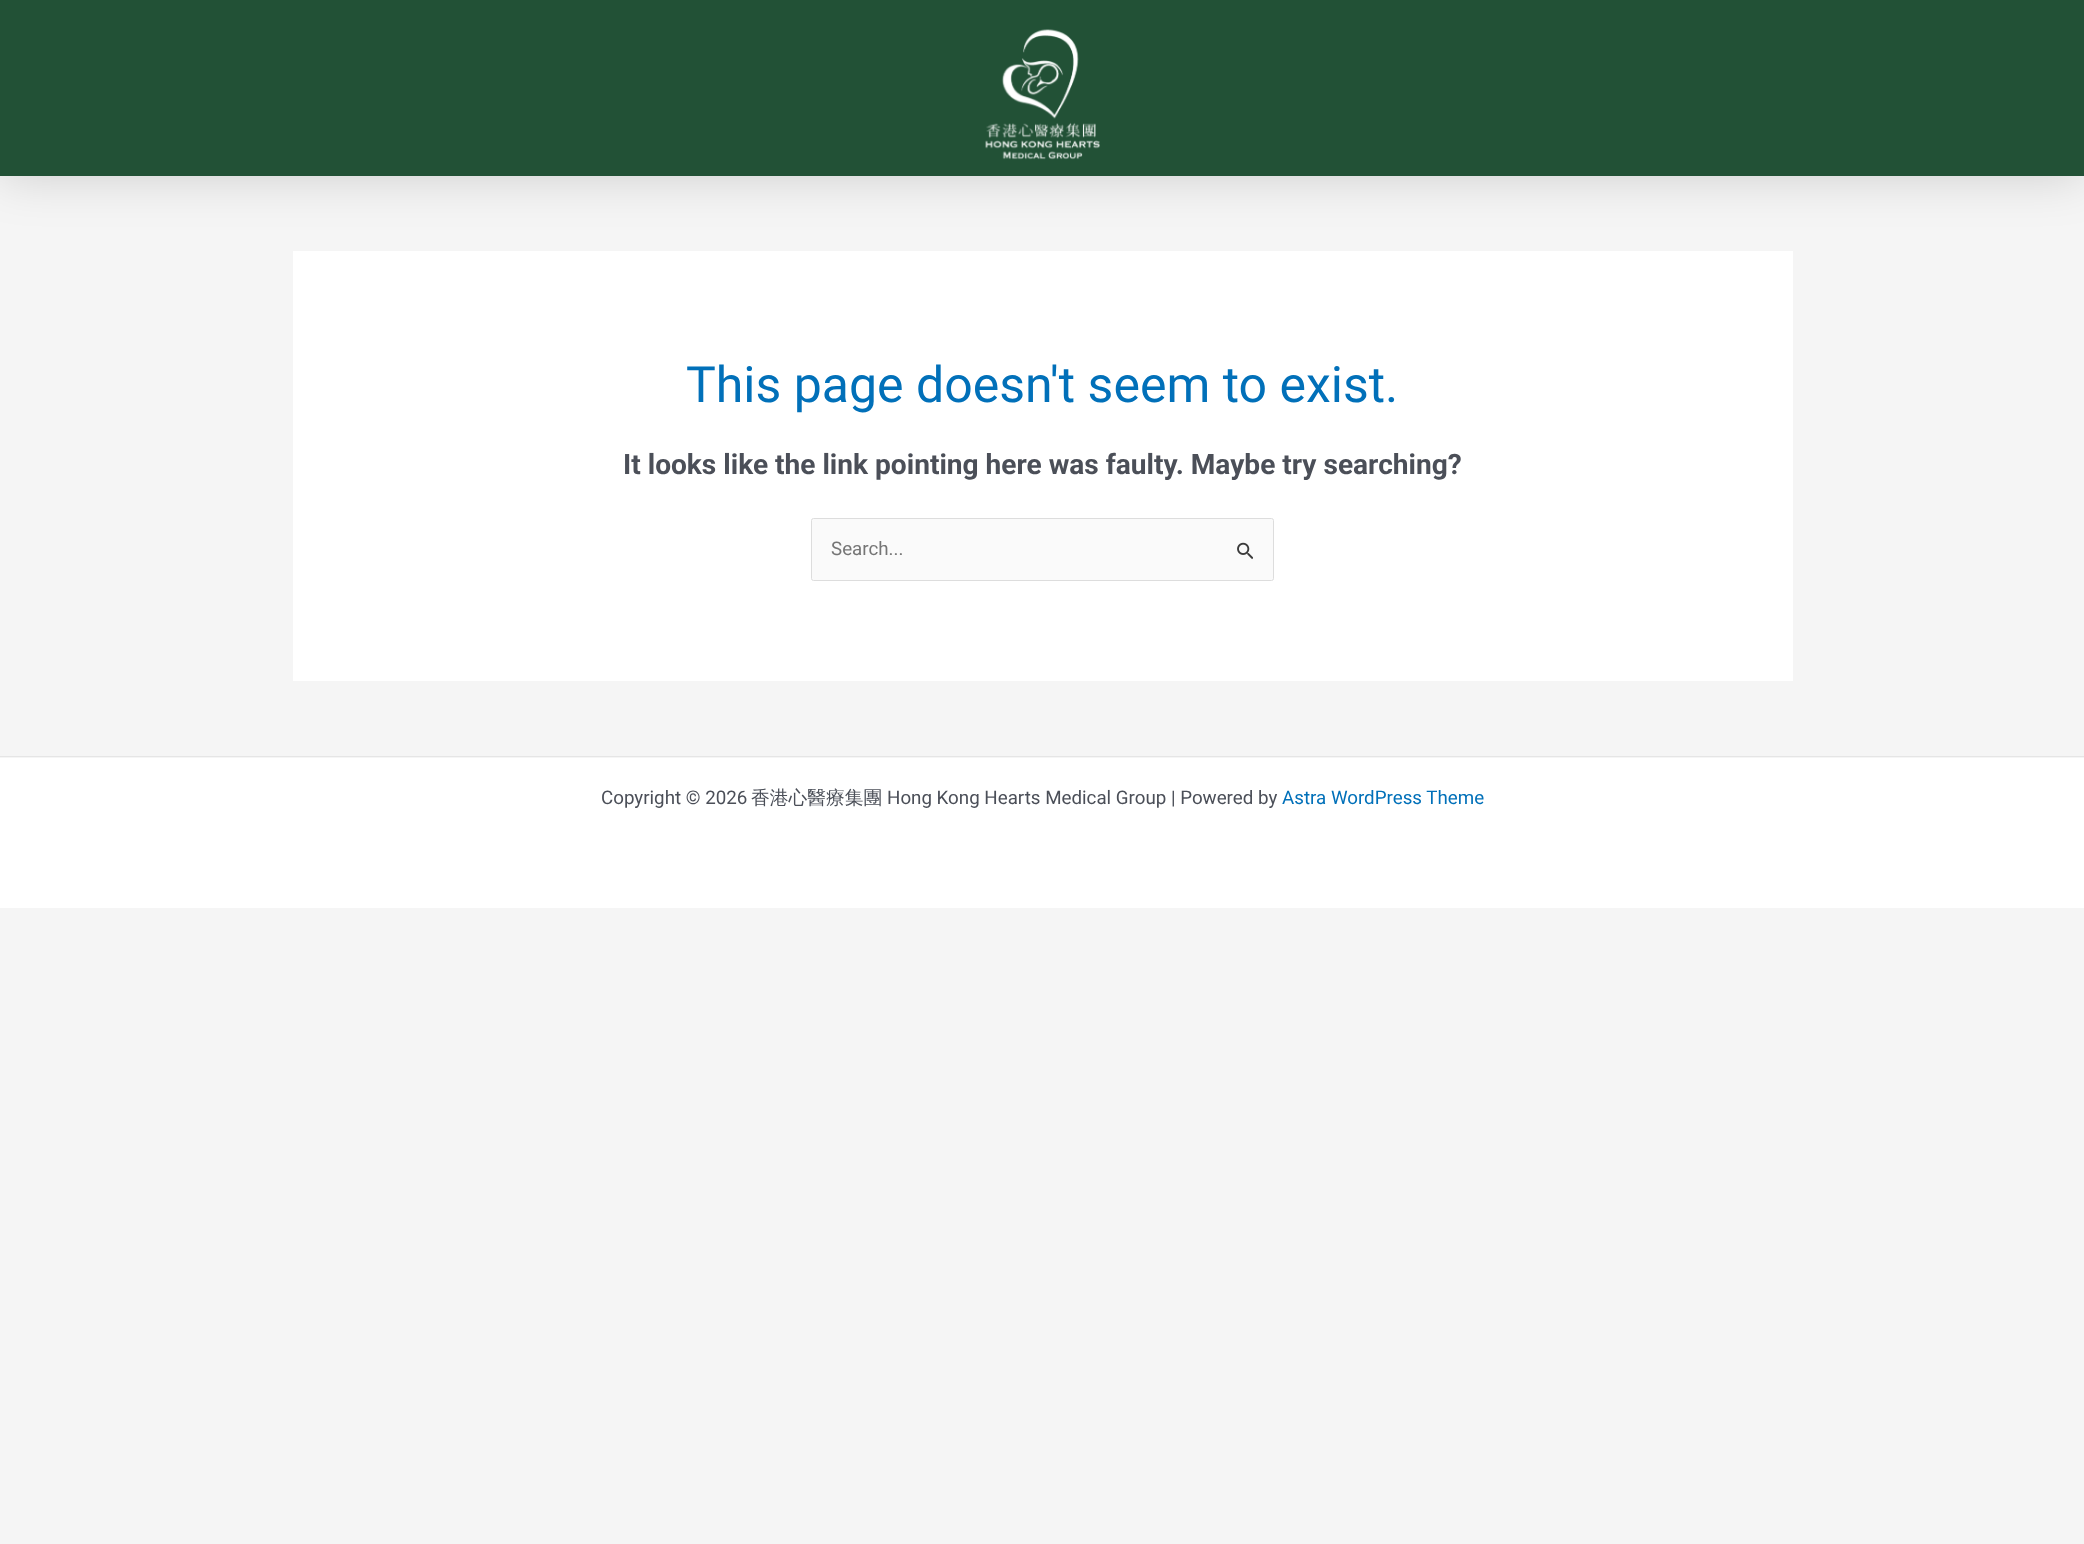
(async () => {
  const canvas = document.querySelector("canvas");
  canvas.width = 2084;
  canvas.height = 1544;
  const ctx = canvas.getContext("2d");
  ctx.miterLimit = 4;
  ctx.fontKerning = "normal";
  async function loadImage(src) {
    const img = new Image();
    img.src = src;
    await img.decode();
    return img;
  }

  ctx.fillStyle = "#f5f5f5";
  ctx.fillRect(0, 0, 2084, 1544);
  ctx.fillStyle = "#ffffff";
  ctx.fillRect(293, 251, 1500, 430);
  ctx.fillStyle = "rgba(0, 0, 0, 0.16)";
  ctx.filter = "blur(25px)";
  ctx.beginPath();
  ctx.rect(0, 0, 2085, 176);
  ctx.fill();
  ctx.filter = "none";
  ctx.fillStyle = "#225136";
  ctx.fillRect(0, 0, 2084, 176);
  ctx.drawImage(await loadImage("img/1.png"), 985, 29, 115, 131);
  ctx.fillStyle = "#fafafa";
  ctx.beginPath();
  ctx.roundRect(811.5, 518.5, 462, 62, 2);
  ctx.fill();
  ctx.strokeStyle = "#dddddd";
  ctx.stroke();
  ctx.drawImage(await loadImage("img/2.png"), 1237, 542, 16, 18);
  ctx.fillStyle = "#ffffff";
  ctx.fillRect(0, 758, 2084, 150);
  ctx.fillStyle = "#e5e5e5";
  ctx.fillRect(0, 756, 2084, 1);
  ctx.font = "50px Roboto";
  ctx.fillStyle = "#0170b9";
  ctx.fillText("This page doesn't seem to exist.", 686, 402);
  ctx.font = "bold 28.1px Roboto";
  ctx.fillStyle = "#4b4f58";
  ctx.fillText("It looks like the link pointing here was faulty. Maybe try searching?", 623, 474);
  ctx.font = "18.75px Roboto";
  ctx.fillStyle = "#757575";
  ctx.fillText("Search...", 831, 555);
  ctx.fillStyle = "#4b4f58";
  ctx.fillText("Copyright © 2026", 601, 804);
  ctx.font = "500 18.75px WenQuanYi Zen Hei";
  ctx.fillText("香港心醫療集團", 751, 804);
  ctx.font = "18.75px Roboto";
  ctx.fillText("Hong Kong Hearts Medical Group | Powered by", 887, 804);
  ctx.fillStyle = "#0170b9";
  ctx.fillText("Astra WordPress Theme", 1282, 804);
})();
